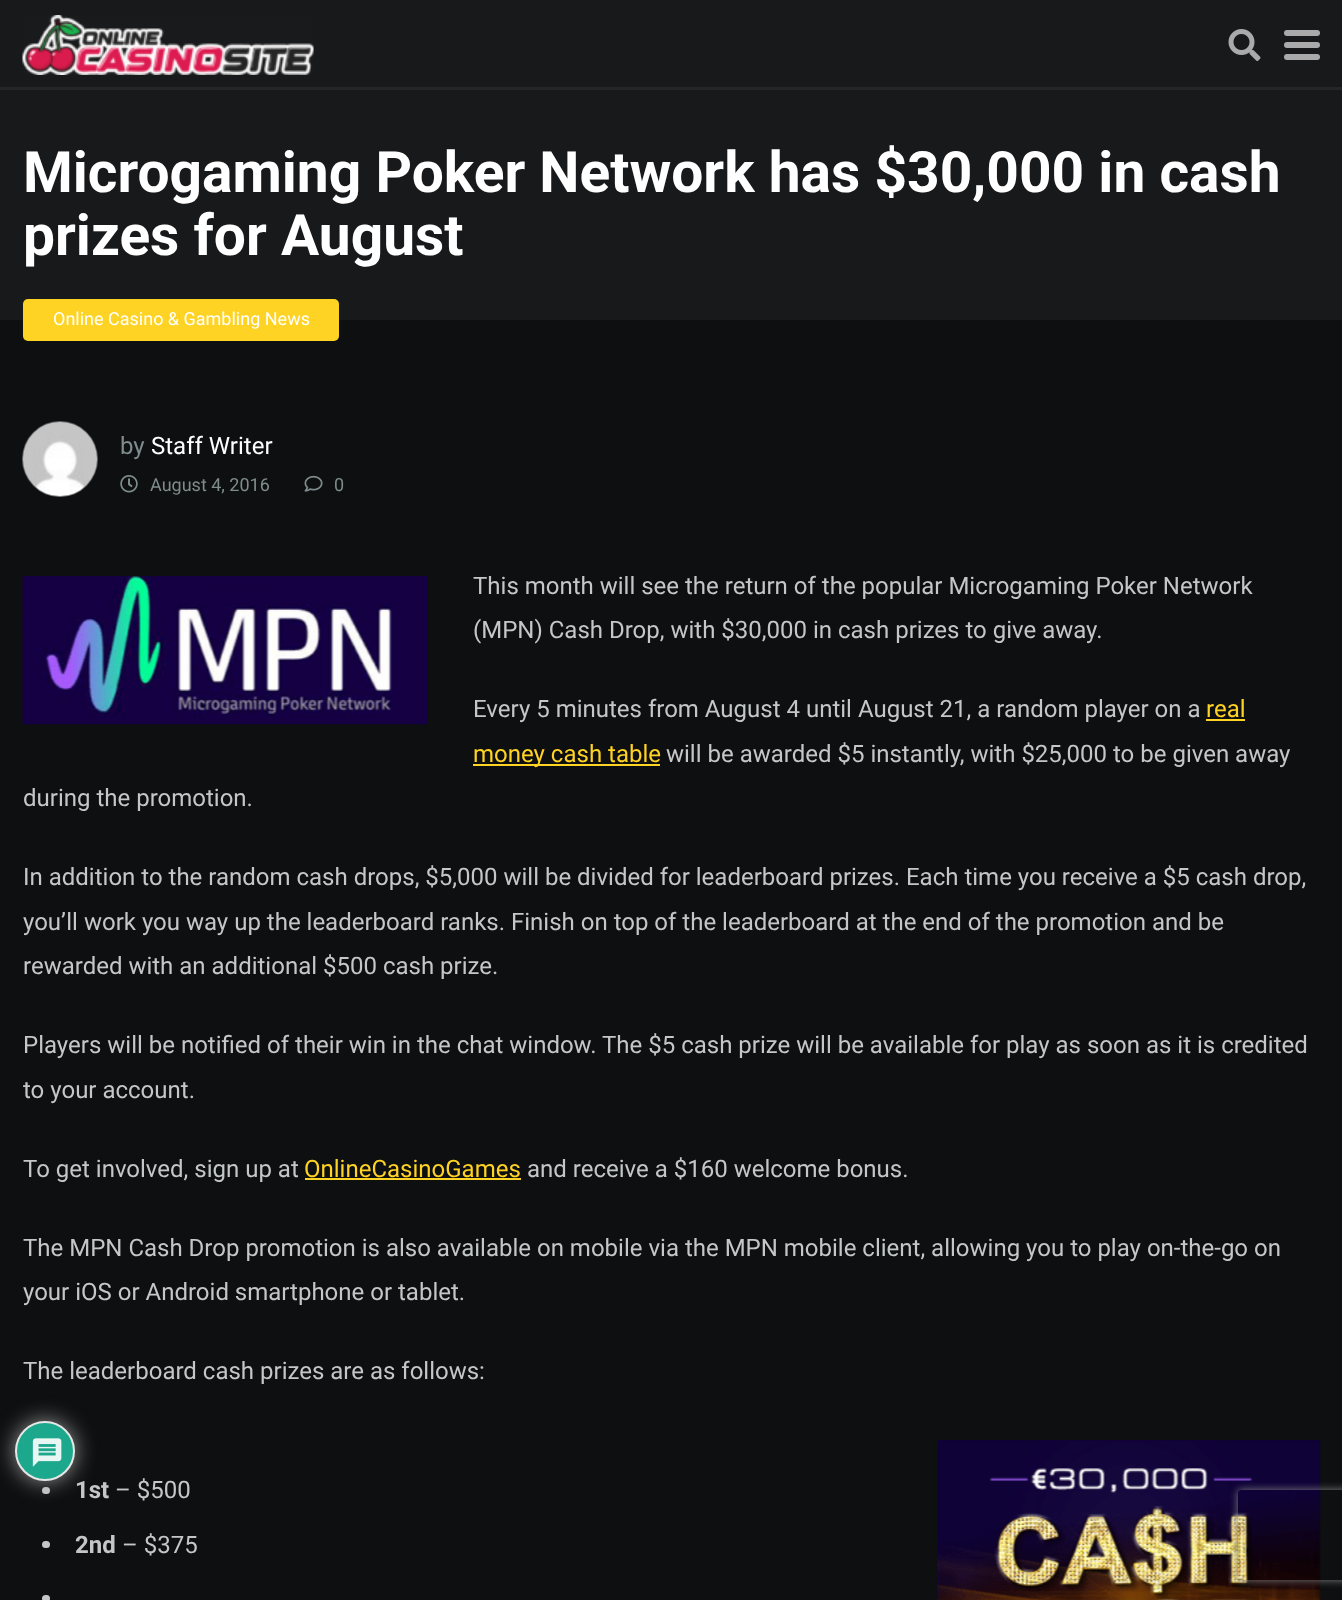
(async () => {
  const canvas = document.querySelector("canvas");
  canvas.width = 1342;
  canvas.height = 1600;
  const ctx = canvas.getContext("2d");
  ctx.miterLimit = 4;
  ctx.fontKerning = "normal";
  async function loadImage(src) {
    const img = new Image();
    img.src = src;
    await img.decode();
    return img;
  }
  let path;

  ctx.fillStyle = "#0e0f10";
  ctx.fillRect(0, 0, 1342, 1600);
  ctx.fillStyle = "#18191b";
  ctx.fillRect(0, 0, 1342, 87);
  ctx.fillStyle = "#242629";
  ctx.fillRect(0, 87, 1342, 3);
  ctx.drawImage(await loadImage("img/1.png"), 22, 15, 292, 60);
  ctx.drawImage(await loadImage("img/2.png"), 1228, 29, 33, 32);
  ctx.fillStyle = "#aaaaaa";
  ctx.beginPath();
  ctx.roundRect(1284, 30, 36, 6, 3);
  ctx.fill();
  ctx.beginPath();
  ctx.roundRect(1284, 42, 36, 6, 3);
  ctx.fill();
  ctx.beginPath();
  ctx.roundRect(1284, 54, 36, 6, 3);
  ctx.fill();
  ctx.fillStyle = "#18191b";
  ctx.fillRect(0, 90, 1342, 230);
  ctx.fillStyle = "#ffd323";
  ctx.beginPath();
  ctx.roundRect(23, 299, 316, 42, 5);
  ctx.fill();
  ctx.drawImage(await loadImage("img/3.png"), 22, 421, 76, 76);
  ctx.drawImage(await loadImage("img/4.png"), 120, 475, 18, 18);
  ctx.drawImage(await loadImage("img/5.png"), 304, 475, 19, 17);
  ctx.drawImage(await loadImage("img/6.png"), 22, 576, 406, 149);
  for (const [x, y, w, h, color] of [
    [1206, 719, 39, 2, "#ffd323"],
    [473, 764, 187, 2, "#ffd323"],
    [305, 1178, 216, 2, "#ffd323"],
  ]) {
    ctx.fillStyle = color;
    ctx.fillRect(x, y, w, h);
  }
  ctx.fillStyle = "#c3c7c8";
  ctx.beginPath();
  ctx.roundRect(42, 1487, 8, 7, 3.5);
  ctx.fill();
  ctx.beginPath();
  ctx.roundRect(42, 1541, 8, 7, 3.5);
  ctx.fill();
  ctx.beginPath();
  ctx.roundRect(42, 1595, 8, 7, 3.5);
  ctx.fill();
  ctx.drawImage(await loadImage("img/7.png"), 937, 1440, 384, 160);
  ctx.fillStyle = "rgba(170, 170, 170, 0.9)";
  ctx.filter = "blur(11px)";
  ctx.beginPath();
  ctx.roundRect(15, 1421, 60, 60, 30);
  ctx.fill();
  ctx.filter = "none";
  ctx.fillStyle = "#1ca88c";
  ctx.beginPath();
  ctx.arc(45, 1451, 29, 0, Math.PI * 2);
  ctx.fill();
  ctx.strokeStyle = "#e7e7e7";
  ctx.lineWidth = 2;
  ctx.stroke();
  ctx.drawImage(await loadImage("img/8.png"), 32, 1438, 30, 29);
  ctx.save();
  path = new Path2D("M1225 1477H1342V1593H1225ZM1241 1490H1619C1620.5 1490 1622 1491.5 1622 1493V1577C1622 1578.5 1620.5 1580 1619 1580H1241C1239.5 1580 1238 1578.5 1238 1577V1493C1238 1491.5 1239.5 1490 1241 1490Z");
  ctx.clip(path, "evenodd");
  ctx.fillStyle = "#808080";
  ctx.filter = "blur(4px)";
  ctx.beginPath();
  ctx.roundRect(1238, 1490, 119, 90, 3);
  ctx.fill();
  ctx.filter = "none";
  ctx.restore();
  ctx.font = "bold 56.9px Roboto";
  ctx.fillStyle = "#ffffff";
  ctx.fillText("Microgaming Poker Network has $30,000 in cash", 23, 192);
  ctx.fillText("prizes for August", 23, 255);
  ctx.font = "18px Roboto";
  ctx.fillText("Online Casino & Gambling News", 53, 325);
  ctx.font = "24px Roboto";
  ctx.fillStyle = "#7f8c8d";
  ctx.fillText("by", 120, 454);
  ctx.fillStyle = "#ffffff";
  ctx.fillText("Staff Writer", 151, 454);
  ctx.font = "18px Roboto";
  ctx.fillStyle = "#7f8c8d";
  ctx.fillText("August 4, 2016", 150, 491);
  ctx.fillText("0", 334, 491);
  ctx.font = "24px Roboto";
  ctx.fillStyle = "#c3c7c8";
  for (const [text, x, y] of [
    ["This month will see the return of the popular Microgaming Poker Network", 473, 594],
    ["(MPN) Cash Drop, with $30,000 in cash prizes to give away.", 473, 638],
    ["Every 5 minutes from August 4 until August 21, a random player on a", 473, 717],
  ]) {
    ctx.fillText(text, x, y);
  }
  ctx.fillStyle = "#ffd323";
  ctx.fillText("real", 1206, 717);
  ctx.fillText("money cash table", 473, 762);
  ctx.fillStyle = "#c3c7c8";
  for (const [text, x, y] of [
    ["will be awarded $5 instantly, with $25,000 to be given away", 666, 762],
    ["during the promotion.", 23, 806],
    ["In addition to the random cash drops, $5,000 will be divided for leaderboard prizes. Each time you receive a $5 cash drop,", 23, 885],
    ["you’ll work you way up the leaderboard ranks. Finish on top of the leaderboard at the end of the promotion and be", 23, 930],
    ["rewarded with an additional $500 cash prize.", 23, 974],
    ["Players will be notified of their win in the chat window. The $5 cash prize will be available for play as soon as it is credited", 23, 1053],
    ["to your account.", 23, 1098],
    ["To get involved, sign up at", 23, 1177],
  ]) {
    ctx.fillText(text, x, y);
  }
  ctx.fillStyle = "#ffd323";
  ctx.fillText("OnlineCasinoGames", 304, 1177);
  ctx.fillStyle = "#c3c7c8";
  for (const [text, x, y] of [
    ["and receive a $160 welcome bonus.", 527, 1177],
    ["The MPN Cash Drop promotion is also available on mobile via the MPN mobile client, allowing you to play on-the-go on", 23, 1256],
    ["your iOS or Android smartphone or tablet.", 23, 1300],
    ["The leaderboard cash prizes are as follows:", 23, 1379],
  ]) {
    ctx.fillText(text, x, y);
  }
  ctx.font = "bold 24px Roboto";
  ctx.fillText("1st", 75, 1498);
  ctx.font = "24px Roboto";
  ctx.fillText("– $500", 115, 1498);
  ctx.font = "bold 24px Roboto";
  ctx.fillText("2nd", 75, 1553);
  ctx.font = "24px Roboto";
  ctx.fillText("– $375", 122, 1553);
})();
